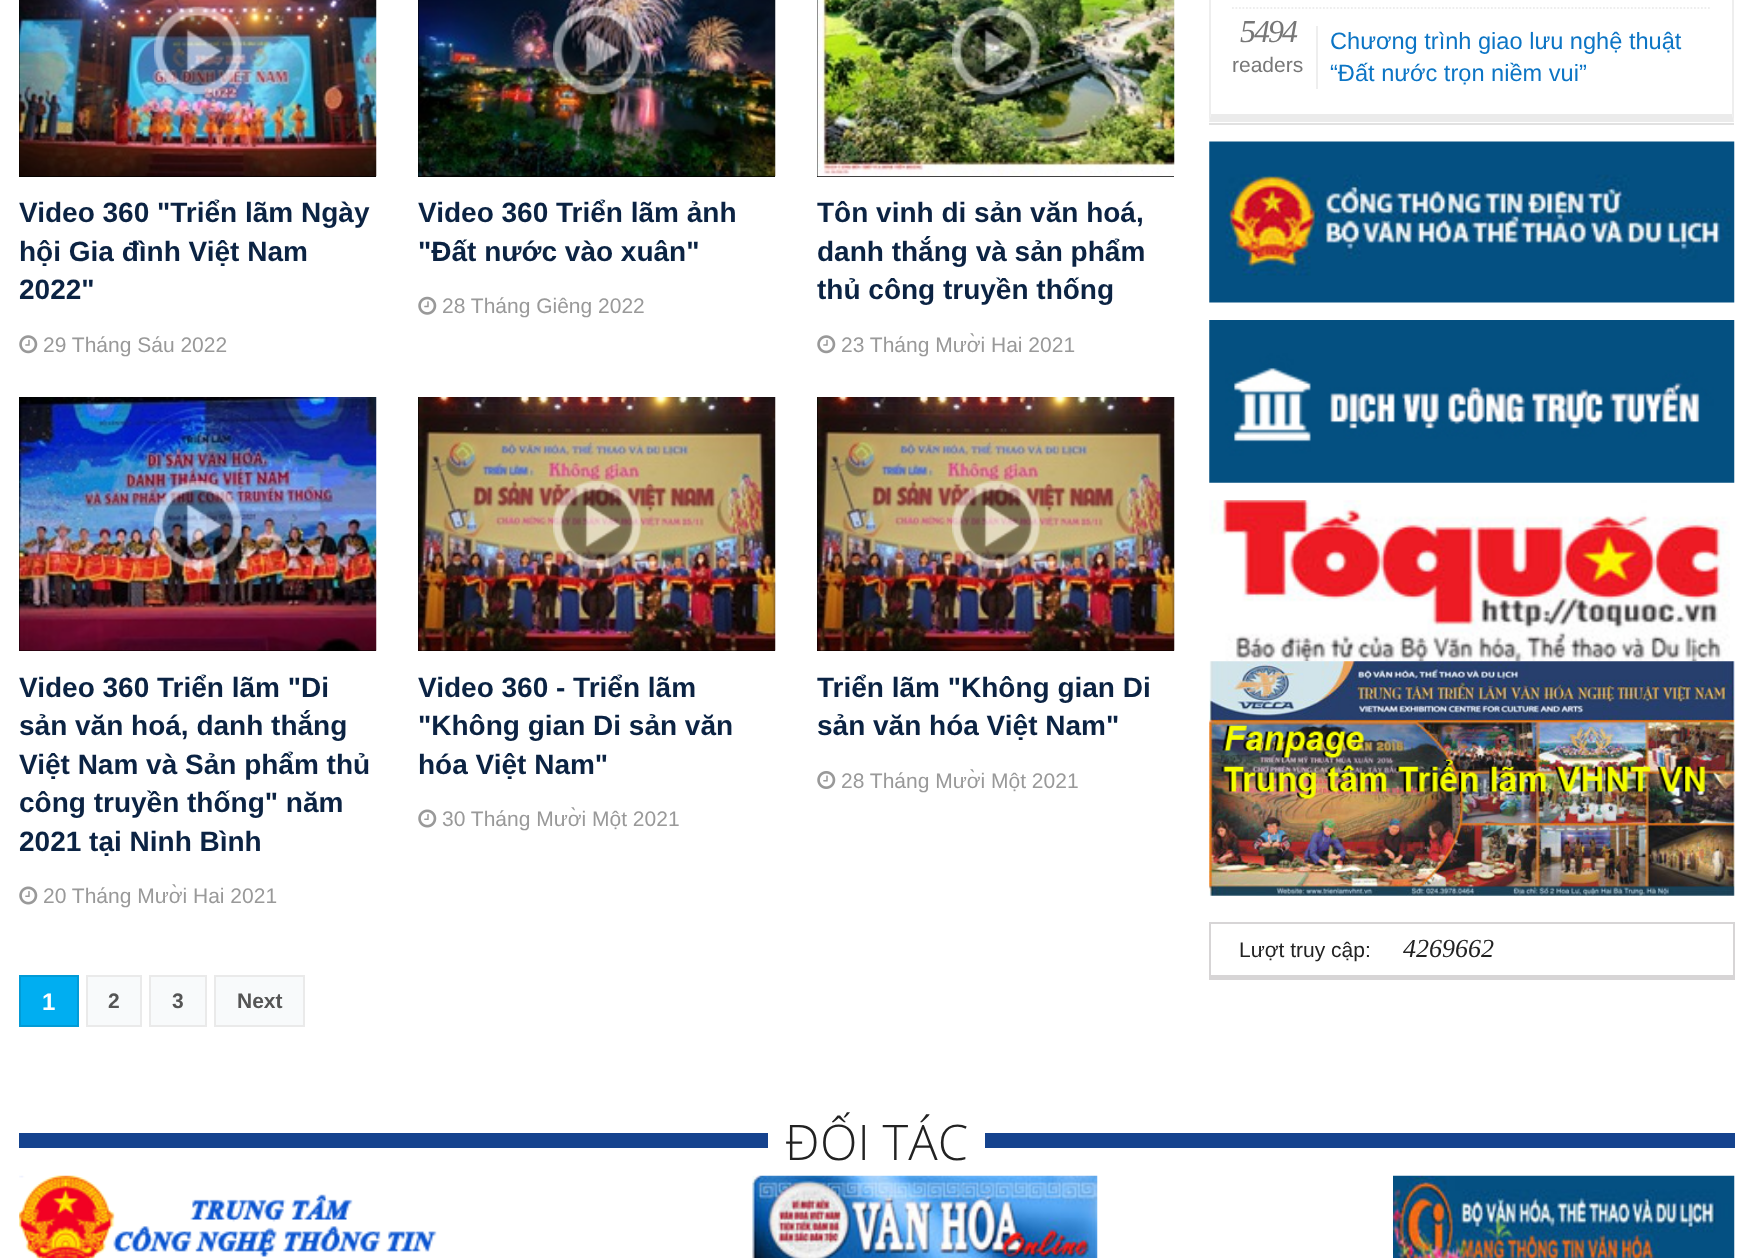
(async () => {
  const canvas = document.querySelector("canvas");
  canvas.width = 1753;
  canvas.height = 1258;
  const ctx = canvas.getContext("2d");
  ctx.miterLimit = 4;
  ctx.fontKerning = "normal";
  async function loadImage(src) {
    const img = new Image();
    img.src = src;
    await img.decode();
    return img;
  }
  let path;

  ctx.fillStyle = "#ffffff";
  ctx.fillRect(0, 0, 1753, 1258);
  ctx.fillStyle = "#000000";
  ctx.fillRect(19, 0, 357, 177);
  ctx.drawImage(await loadImage("img/1.png"), 19, 0, 358, 177);
  ctx.drawImage(await loadImage("img/2.png"), 154, 6, 88, 89);
  ctx.drawImage(await loadImage("img/3.png"), 19, 335, 19, 19);
  ctx.fillRect(418, 0, 357, 177);
  ctx.drawImage(await loadImage("img/4.png"), 418, 0, 358, 177);
  ctx.drawImage(await loadImage("img/5.png"), 553, 6, 88, 89);
  ctx.drawImage(await loadImage("img/6.png"), 418, 296, 19, 19);
  ctx.fillRect(817, 0, 357, 177);
  ctx.drawImage(await loadImage("img/7.png"), 817, 0, 358, 177);
  ctx.drawImage(await loadImage("img/8.png"), 952, 6, 88, 89);
  ctx.drawImage(await loadImage("img/9.png"), 817, 335, 19, 19);
  ctx.fillRect(19, 397, 357, 254);
  ctx.drawImage(await loadImage("img/10.png"), 19, 397, 358, 254);
  ctx.drawImage(await loadImage("img/11.png"), 154, 481, 88, 88);
  ctx.drawImage(await loadImage("img/12.png"), 19, 886, 19, 19);
  ctx.fillRect(418, 397, 357, 254);
  ctx.drawImage(await loadImage("img/13.png"), 418, 397, 358, 254);
  ctx.drawImage(await loadImage("img/14.png"), 553, 481, 88, 88);
  ctx.drawImage(await loadImage("img/15.png"), 418, 809, 19, 19);
  ctx.fillRect(817, 397, 357, 254);
  ctx.drawImage(await loadImage("img/13.png"), 817, 397, 358, 254);
  ctx.drawImage(await loadImage("img/16.png"), 952, 481, 88, 88);
  ctx.drawImage(await loadImage("img/17.png"), 817, 771, 19, 18);
  ctx.fillStyle = "#00aef1";
  ctx.beginPath();
  ctx.rect(20, 976, 58, 50);
  ctx.fill();
  ctx.strokeStyle = "#029bd6";
  ctx.lineWidth = 2;
  ctx.stroke();
  ctx.fillStyle = "#f8fafb";
  ctx.beginPath();
  ctx.rect(87, 976, 54, 50);
  ctx.fill();
  ctx.strokeStyle = "#eaeaea";
  ctx.stroke();
  ctx.beginPath();
  ctx.rect(150, 976, 56, 50);
  ctx.fill();
  ctx.stroke();
  ctx.beginPath();
  ctx.rect(215, 976, 89, 50);
  ctx.fill();
  ctx.stroke();
  ctx.fillStyle = "#e1e1e1";
  ctx.fillRect(1209, 123, 525, 2);
  ctx.fillStyle = "#eeeeee";
  path = new Path2D("M1734-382V122L1732 114V-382Z");
  ctx.fill(path);
  ctx.fillStyle = "#ebebeb";
  path = new Path2D("M1734 122H1209L1211 114H1732Z");
  ctx.fill(path);
  ctx.fillStyle = "#eeeeee";
  path = new Path2D("M1209 122V-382H1211V114Z");
  ctx.fill(path);
  path = new Path2D("M1232 8H1711.5");
  ctx.strokeStyle = "#eeeeee";
  ctx.lineWidth = 1.8;
  ctx.setLineDash([1.75, 1.75]);
  ctx.stroke(path);
  ctx.fillRect(1316, 26, 2, 63);
  ctx.drawImage(await loadImage("img/18.png"), 1209, 141, 526, 162);
  ctx.drawImage(await loadImage("img/19.png"), 1209, 320, 526, 163);
  ctx.drawImage(await loadImage("img/20.png"), 1209, 500, 521, 162);
  ctx.drawImage(await loadImage("img/21.png"), 1209, 661, 526, 235);
  for (const [x, y, w, h, color] of [
    [1209, 922, 525, 2, "#d7d5d6"],
    [1733, 922, 2, 58, "#d7d5d6"],
    [1209, 975, 525, 5, "#d7d5d6"],
    [1209, 922, 2, 58, "#d7d5d6"],
    [19, 1133, 1716, 15, "#15438e"],
    [768, 1133, 217, 15, "#ffffff"],
  ]) {
    ctx.fillStyle = color;
    ctx.fillRect(x, y, w, h);
  }
  ctx.drawImage(await loadImage("img/22.png"), 19, 1175, 418, 83);
  ctx.drawImage(await loadImage("img/23.png"), 752, 1175, 346, 83);
  ctx.drawImage(await loadImage("img/24.png"), 1393, 1175, 342, 83);
  ctx.font = "bold 28px Liberation Sans";
  ctx.fillStyle = "#0b2343";
  for (const [text, x, y] of [
    ["Video 360 \"Triển lãm Ngày", 19, 222],
    ["hội Gia đình Việt Nam", 19, 261],
    ["2022\"", 19, 299],
  ]) {
    ctx.fillText(text, x, y);
  }
  ctx.font = "21px Liberation Sans";
  ctx.fillStyle = "#999999";
  ctx.fillText("29 Tháng Sáu 2022", 43, 352);
  ctx.font = "bold 28px Liberation Sans";
  ctx.fillStyle = "#0b2343";
  ctx.fillText("Video 360 Triển lãm ảnh", 418, 222);
  ctx.fillText("\"Đất nước vào xuân\"", 418, 261);
  ctx.font = "21px Liberation Sans";
  ctx.fillStyle = "#999999";
  ctx.fillText("28 Tháng Giêng 2022", 442, 313);
  ctx.font = "bold 28px Liberation Sans";
  ctx.fillStyle = "#0b2343";
  for (const [text, x, y] of [
    ["Tôn vinh di sản văn hoá,", 817, 222],
    ["danh thắng và sản phẩm", 817, 261],
    ["thủ công truyền thống", 817, 299],
  ]) {
    ctx.fillText(text, x, y);
  }
  ctx.font = "21px Liberation Sans";
  ctx.fillStyle = "#999999";
  ctx.fillText("23 Tháng Mười Hai 2021", 841, 352);
  ctx.font = "bold 28px Liberation Sans";
  ctx.fillStyle = "#0b2343";
  for (const [text, x, y] of [
    ["Video 360 Triển lãm \"Di", 19, 697],
    ["sản văn hoá, danh thắng", 19, 735],
    ["Việt Nam và Sản phẩm thủ", 19, 774],
    ["công truyền thống\" năm", 19, 812],
    ["2021 tại Ninh Bình", 19, 851],
  ]) {
    ctx.fillText(text, x, y);
  }
  ctx.font = "21px Liberation Sans";
  ctx.fillStyle = "#999999";
  ctx.fillText("20 Tháng Mười Hai 2021", 43, 903);
  ctx.font = "bold 28px Liberation Sans";
  ctx.fillStyle = "#0b2343";
  for (const [text, x, y] of [
    ["Video 360 - Triển lãm", 418, 697],
    ["\"Không gian Di sản văn", 418, 735],
    ["hóa Việt Nam\"", 418, 774],
  ]) {
    ctx.fillText(text, x, y);
  }
  ctx.font = "21px Liberation Sans";
  ctx.fillStyle = "#999999";
  ctx.fillText("30 Tháng Mười Một 2021", 442, 826);
  ctx.font = "bold 28px Liberation Sans";
  ctx.fillStyle = "#0b2343";
  ctx.fillText("Triển lãm \"Không gian Di", 817, 697);
  ctx.fillText("sản văn hóa Việt Nam\"", 817, 735);
  ctx.font = "21px Liberation Sans";
  ctx.fillStyle = "#999999";
  ctx.fillText("28 Tháng Mười Một 2021", 841, 788);
  ctx.font = "bold 24px Liberation Sans";
  ctx.fillStyle = "#ffffff";
  ctx.fillText("1", 42, 1010);
  ctx.font = "bold 21px Liberation Sans";
  ctx.fillStyle = "#555555";
  for (const [text, x, y] of [
    ["2", 108, 1008],
    ["3", 172, 1008],
    ["Next", 237, 1008],
  ]) {
    ctx.fillText(text, x, y);
  }
  ctx.letterSpacing = "-2px";
  ctx.font = "italic 32px Liberation Serif";
  ctx.fillStyle = "#777777";
  ctx.fillText("5494", 1240, 42);
  ctx.letterSpacing = "0px";
  ctx.font = "21px Liberation Sans";
  ctx.fillText("readers", 1232, 72);
  ctx.font = "23.6px Liberation Sans";
  ctx.fillStyle = "#0c75c5";
  ctx.fillText("Chương trình giao lưu nghệ thuật", 1330, 49);
  ctx.fillText("“Đất nước trọn niềm vui”", 1330, 81);
  ctx.font = "21px Liberation Sans";
  ctx.fillStyle = "#222222";
  ctx.fillText("Lượt truy cập:", 1239, 957);
  ctx.font = "italic 26px Liberation Serif";
  ctx.fillText("4269662", 1403, 957);
  ctx.font = "300 49px Open Sans";
  ctx.fillText("ĐỐI TÁC", 785, 1160);
})();
